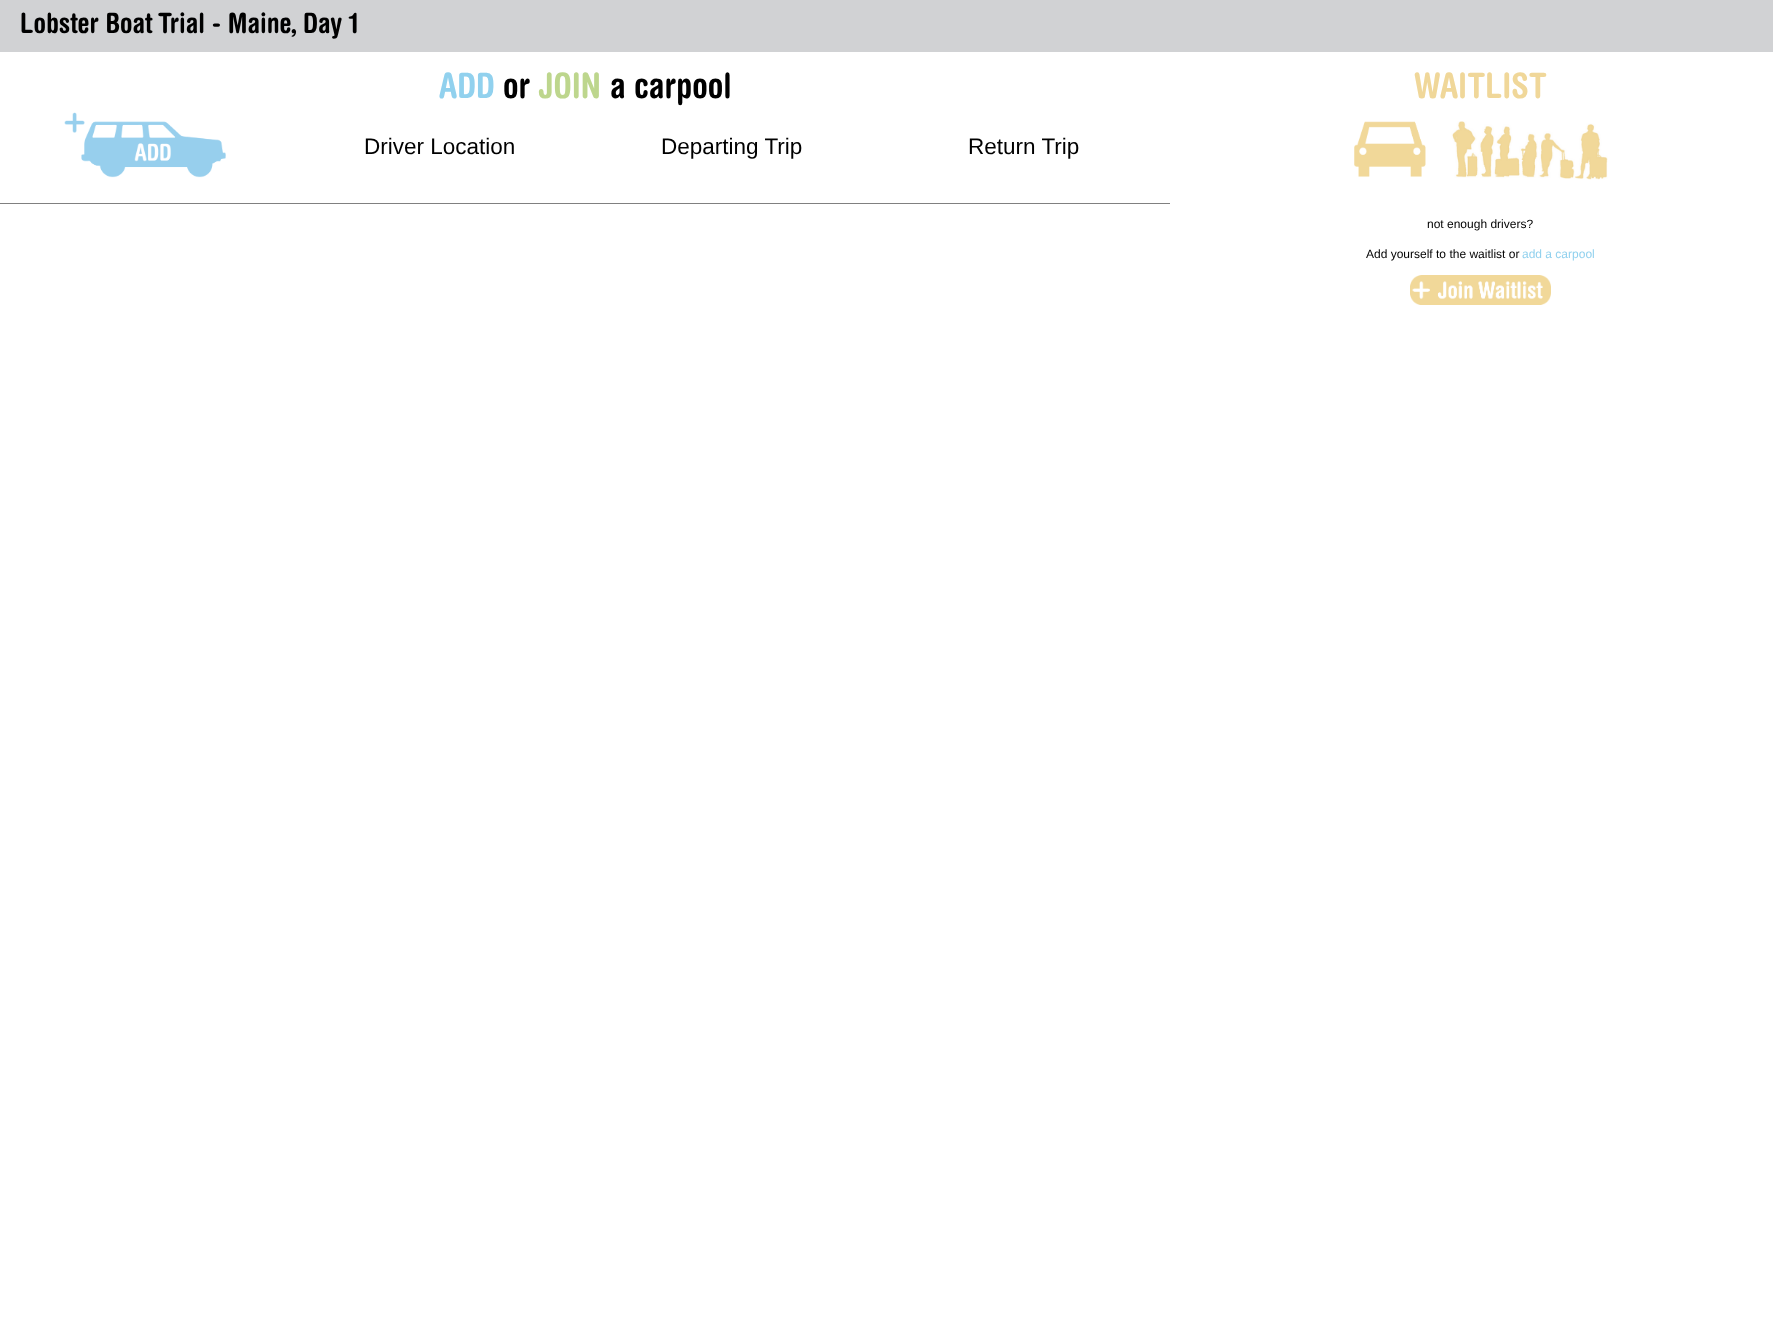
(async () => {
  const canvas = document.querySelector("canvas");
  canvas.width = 1773;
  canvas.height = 1335;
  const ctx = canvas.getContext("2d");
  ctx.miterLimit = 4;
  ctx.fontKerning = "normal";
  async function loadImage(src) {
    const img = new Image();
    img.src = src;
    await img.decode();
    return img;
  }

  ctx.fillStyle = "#ffffff";
  ctx.fillRect(0, 0, 1773, 1335);
  ctx.fillStyle = "#d1d2d4";
  ctx.fillRect(0, 0, 1773, 52);
  ctx.fillStyle = "#808080";
  ctx.fillRect(0, 203, 1170, 1);
  ctx.drawImage(await loadImage("img/1.png"), 64, 112, 162, 66);
  ctx.drawImage(await loadImage("img/2.png"), 1354, 121, 254, 59);
  ctx.drawImage(await loadImage("img/3.png"), 1410, 275, 141, 30);
  ctx.font = "bold 28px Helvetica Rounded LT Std";
  ctx.fillStyle = "#000000";
  ctx.fillText("Lobster Boat Trial - Maine, Day 1", 20, 33);
  ctx.font = "bold 35px Helvetica Rounded LT Std";
  ctx.fillStyle = "#91d1ee";
  ctx.fillText("ADD", 439, 98);
  ctx.fillStyle = "#000000";
  ctx.fillText("or", 503, 98);
  ctx.fillStyle = "#bdd68d";
  ctx.fillText("JOIN", 538, 98);
  ctx.fillStyle = "#000000";
  ctx.fillText("a carpool", 610, 98);
  ctx.font = "22.5px Liberation Sans";
  for (const [text, x, y] of [
    ["Driver Location", 364, 154],
    ["Departing Trip", 661, 154],
    ["Return Trip", 968, 154],
  ]) {
    ctx.fillText(text, x, y);
  }
  ctx.font = "bold 35px Helvetica Rounded LT Std";
  ctx.fillStyle = "#f0d799";
  ctx.fillText("WAITLIST", 1414, 98);
  ctx.font = "12px Liberation Sans";
  ctx.fillStyle = "#000000";
  ctx.fillText("not enough drivers?", 1427, 228);
  ctx.fillText("Add yourself to the waitlist or", 1366, 258);
  ctx.fillStyle = "#91d1ee";
  ctx.fillText("add a carpool", 1522, 258);
})();
